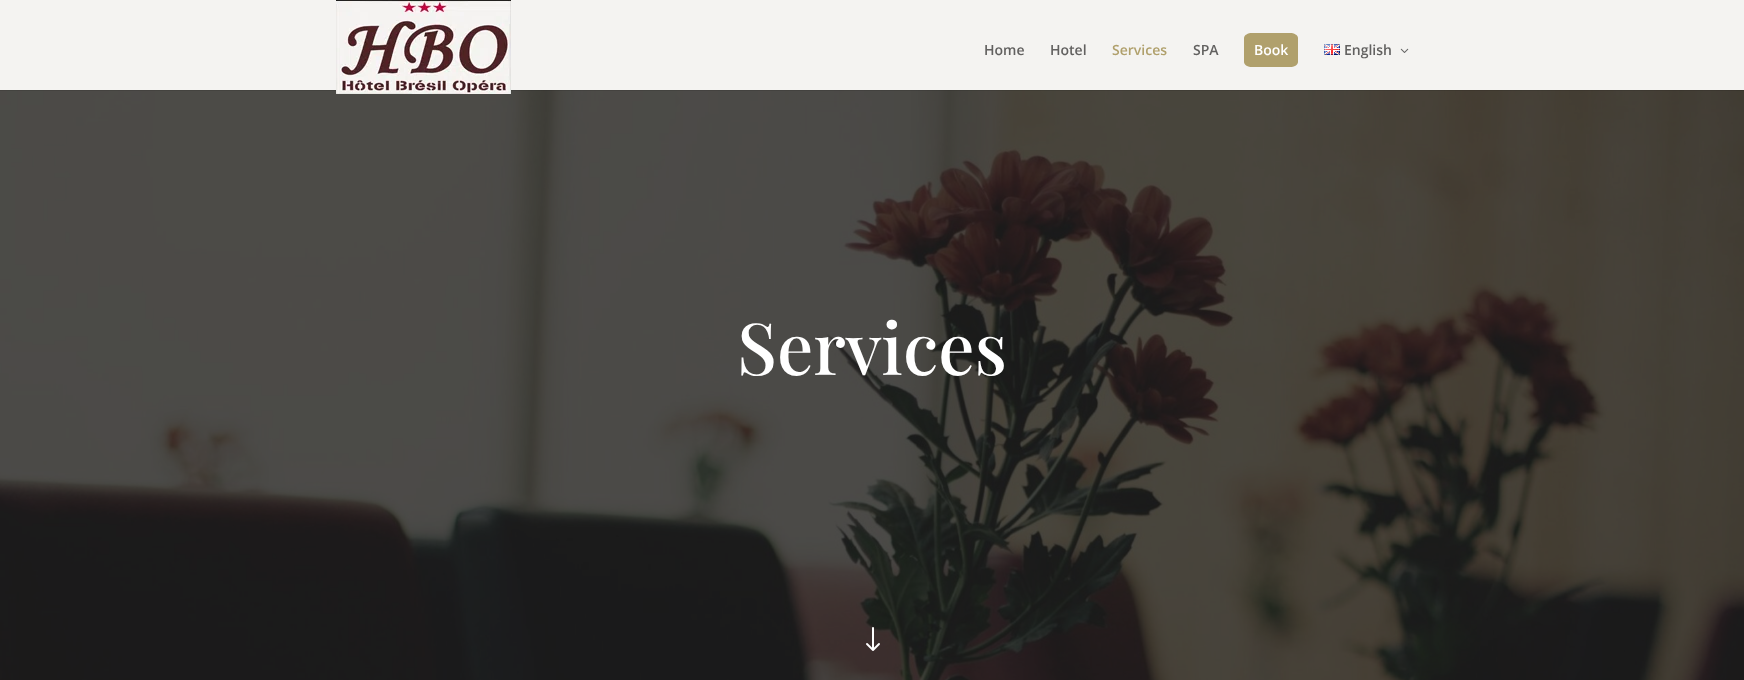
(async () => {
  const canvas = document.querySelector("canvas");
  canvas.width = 1744;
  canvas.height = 680;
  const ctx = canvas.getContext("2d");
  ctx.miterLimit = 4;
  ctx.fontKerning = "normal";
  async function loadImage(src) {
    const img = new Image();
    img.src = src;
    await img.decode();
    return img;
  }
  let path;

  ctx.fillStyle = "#ffffff";
  ctx.fillRect(0, 0, 1744, 680);
  ctx.drawImage(await loadImage("img/4.png"), 0, 90, 1744, 590);
  ctx.fillStyle = "rgba(0, 0, 0, 0.1)";
  ctx.fillRect(0, 90, 1744, 1);
  ctx.fillStyle = "#f4f3f1";
  ctx.fillRect(0, 0, 1744, 90);
  ctx.drawImage(await loadImage("img/1.png"), 336, 0, 175, 94);
  ctx.fillStyle = "#b0a06c";
  path = new Path2D("M1252 33H1290C1294 33 1298 35 1298 38V62C1298 65 1294 67 1290 67H1252C1248 67 1244 65 1244 62V38C1244 35 1248 33 1252 33Z");
  ctx.fill(path);
  ctx.drawImage(await loadImage("img/2.png"), 1324, 44, 16, 11);
  ctx.drawImage(await loadImage("img/3.png"), 1400, 48, 9, 5);
  ctx.drawImage(await loadImage("img/5.png"), 866, 627, 14, 24);
  ctx.font = "600 14px Open Sans";
  ctx.fillStyle = "#626160";
  ctx.fillText("Home", 984, 55);
  ctx.fillText("Hotel", 1050, 55);
  ctx.fillStyle = "#b0a06c";
  ctx.fillText("Services", 1112, 55);
  ctx.fillStyle = "#626160";
  ctx.fillText("SPA", 1193, 55);
  ctx.fillStyle = "#ffffff";
  ctx.fillText("Book", 1254, 55);
  ctx.fillStyle = "#626160";
  ctx.fillText("English", 1344, 55);
  ctx.font = "500 72px Playfair Display";
  ctx.fillStyle = "#ffffff";
  ctx.fillText("Services", 737, 375);
})();
